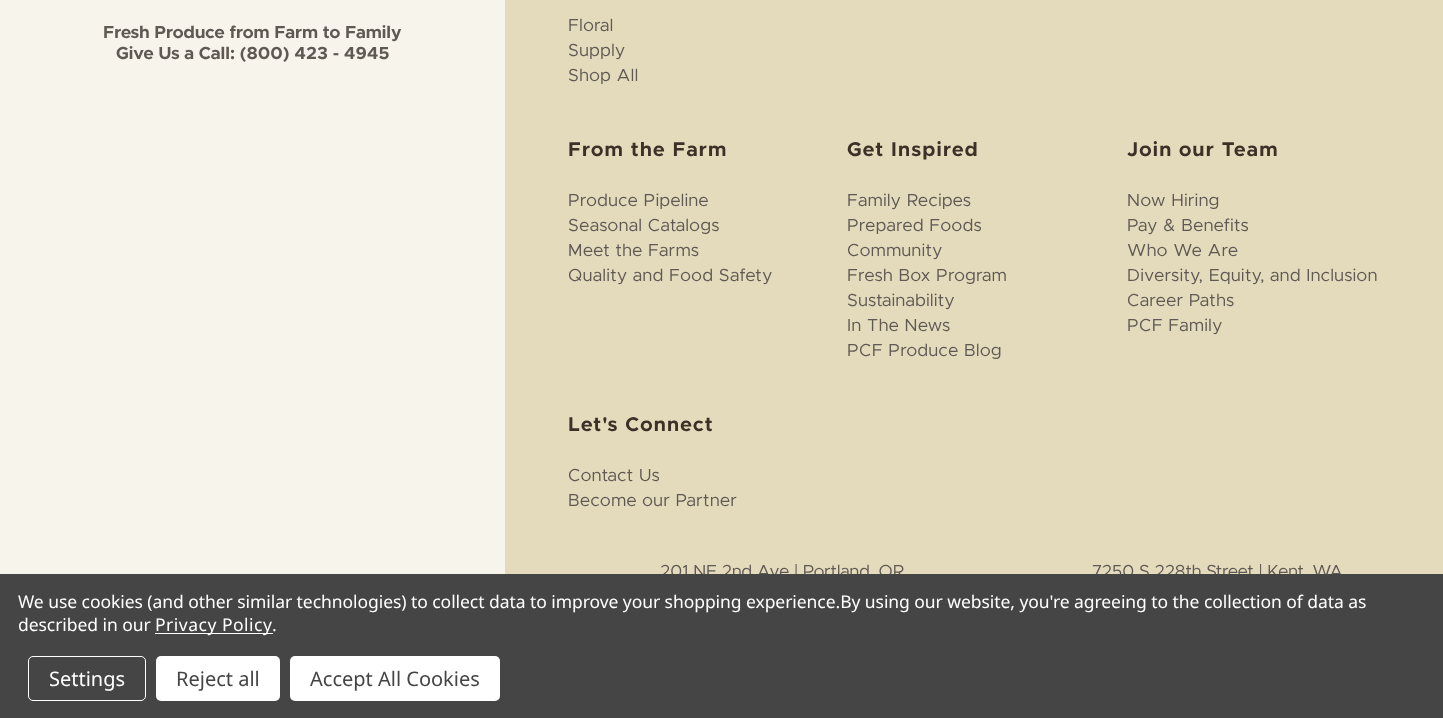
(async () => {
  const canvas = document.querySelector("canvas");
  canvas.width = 1443;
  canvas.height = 718;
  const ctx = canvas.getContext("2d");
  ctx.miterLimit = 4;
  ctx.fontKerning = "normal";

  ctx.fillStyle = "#f7f4ec";
  ctx.fillRect(0, 0, 1443, 718);
  ctx.fillStyle = "#e4dbbc";
  ctx.fillRect(505, 0, 938, 574);
  ctx.font = "bold 17.5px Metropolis";
  ctx.fillStyle = "#5f5954";
  ctx.fillText("Fresh Produce from Farm to Family", 103, 38);
  ctx.fillText("Give Us a Call: (800) 423 - 4945", 116, 59);
  ctx.letterSpacing = "0.5px";
  ctx.font = "17.5px Metropolis";
  for (const [text, x, y] of [
    ["Floral", 568, 31],
    ["Supply", 568, 56],
    ["Shop All", 568, 81],
  ]) {
    ctx.fillText(text, x, y);
  }
  ctx.letterSpacing = "1.25px";
  ctx.font = "bold 20px Metropolis";
  ctx.fillStyle = "#3c3027";
  ctx.fillText("From the Farm", 568, 156);
  ctx.letterSpacing = "0.5px";
  ctx.font = "17.5px Metropolis";
  ctx.fillStyle = "#5f5954";
  for (const [text, x, y] of [
    ["Produce Pipeline", 568, 206],
    ["Seasonal Catalogs", 568, 231],
    ["Meet the Farms", 568, 256],
    ["Quality and Food Safety", 568, 281],
  ]) {
    ctx.fillText(text, x, y);
  }
  ctx.letterSpacing = "1.25px";
  ctx.font = "bold 20px Metropolis";
  ctx.fillStyle = "#3c3027";
  ctx.fillText("Get Inspired", 847, 156);
  ctx.letterSpacing = "0.5px";
  ctx.font = "17.5px Metropolis";
  ctx.fillStyle = "#5f5954";
  for (const [text, x, y] of [
    ["Family Recipes", 847, 206],
    ["Prepared Foods", 847, 231],
    ["Community", 847, 256],
    ["Fresh Box Program", 847, 281],
    ["Sustainability", 847, 306],
    ["In The News", 847, 331],
    ["PCF Produce Blog", 847, 356],
  ]) {
    ctx.fillText(text, x, y);
  }
  ctx.letterSpacing = "1.25px";
  ctx.font = "bold 20px Metropolis";
  ctx.fillStyle = "#3c3027";
  ctx.fillText("Join our Team", 1127, 156);
  ctx.letterSpacing = "0.5px";
  ctx.font = "17.5px Metropolis";
  ctx.fillStyle = "#5f5954";
  for (const [text, x, y] of [
    ["Now Hiring", 1127, 206],
    ["Pay & Benefits", 1127, 231],
    ["Who We Are", 1127, 256],
    ["Diversity, Equity, and Inclusion", 1127, 281],
    ["Career Paths", 1127, 306],
    ["PCF Family", 1127, 331],
  ]) {
    ctx.fillText(text, x, y);
  }
  ctx.letterSpacing = "1.25px";
  ctx.font = "bold 20px Metropolis";
  ctx.fillStyle = "#3c3027";
  ctx.fillText("Let's Connect", 568, 431);
  ctx.letterSpacing = "0.5px";
  ctx.font = "17.5px Metropolis";
  ctx.fillStyle = "#5f5954";
  ctx.fillText("Contact Us", 568, 481);
  ctx.fillText("Become our Partner", 568, 506);
  ctx.letterSpacing = "0px";
  ctx.fillText("201 NE 2nd Ave | Portland, OR", 660, 577);
  ctx.fillText("7250 S 228th Street | Kent, WA", 1092, 577);
  ctx.fillStyle = "#454545";
  ctx.fillRect(0, 574, 1443, 144);
  ctx.letterSpacing = "-0.06px";
  ctx.font = "17.5px Noto Sans";
  ctx.fillStyle = "#ffffff";
  for (const [text, x, y] of [
    ["We use cookies (and other similar technologies) to collect data to improve your shopping experience.By using our website, you're agreeing to the collection of data as", 18, 608],
    ["described in our", 18, 631],
    [".", 272, 631],
  ]) {
    ctx.fillText(text, x, y);
  }
  ctx.fillRect(155, 633, 118, 1);
  ctx.letterSpacing = "0.5px";
  ctx.fillText("Privacy Policy", 155, 631);
  ctx.beginPath();
  ctx.roundRect(28.5, 656.5, 117, 44, 4.5);
  ctx.strokeStyle = "#ffffff";
  ctx.stroke();
  ctx.letterSpacing = "0px";
  ctx.font = "20px Noto Sans";
  ctx.fillText("Settings", 49, 686);
  ctx.beginPath();
  ctx.roundRect(156, 656, 124, 45, 5);
  ctx.fill();
  ctx.fillStyle = "#454545";
  ctx.fillText("Reject all", 176, 686);
  ctx.fillStyle = "#ffffff";
  ctx.beginPath();
  ctx.roundRect(290, 656, 210, 45, 5);
  ctx.fill();
  ctx.fillStyle = "#454545";
  ctx.fillText("Accept All Cookies", 310, 686);
})();
